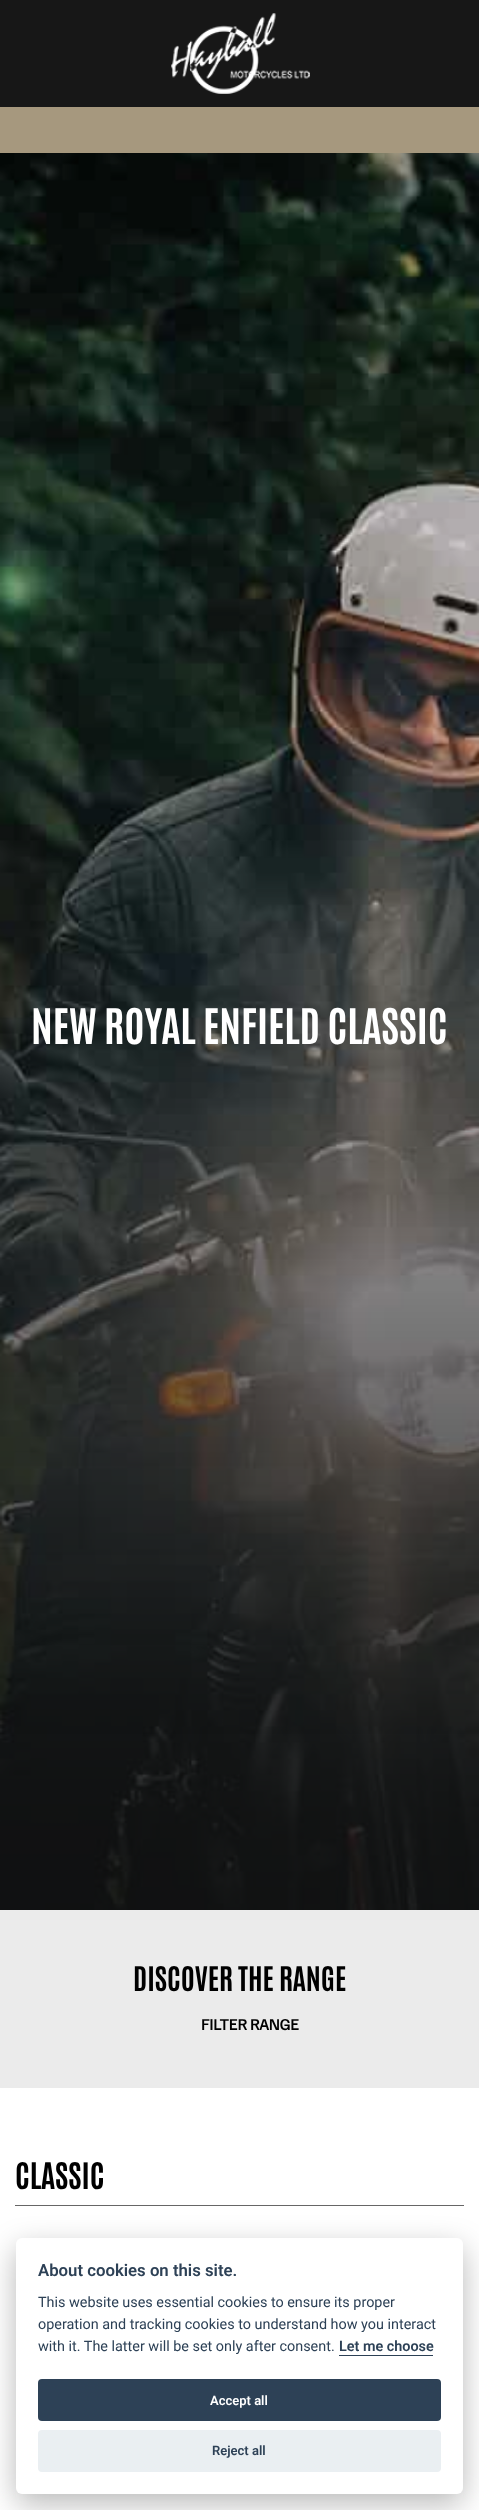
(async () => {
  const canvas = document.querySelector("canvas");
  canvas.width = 479;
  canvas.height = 2510;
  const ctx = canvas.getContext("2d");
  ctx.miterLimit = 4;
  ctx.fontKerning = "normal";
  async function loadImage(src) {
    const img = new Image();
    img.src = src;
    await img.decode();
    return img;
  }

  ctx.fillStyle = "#ffffff";
  ctx.fillRect(0, 0, 479, 2510);
  ctx.fillStyle = "#171717";
  ctx.fillRect(0, 0, 479, 107);
  ctx.drawImage(await loadImage("img/1.png"), 171, 13, 139, 81);
  ctx.fillStyle = "#a6987e";
  ctx.fillRect(0, 107, 479, 46);
  ctx.drawImage(await loadImage("img/2.png"), 0, 153, 479, 1757);
  ctx.fillStyle = "#ebebeb";
  ctx.fillRect(0, 1910, 479, 178);
  ctx.fillStyle = "#666666";
  ctx.fillRect(15, 2205, 449, 1);
  ctx.fillStyle = "rgba(2, 2, 3, 0.28)";
  ctx.filter = "blur(15px)";
  ctx.beginPath();
  ctx.roundRect(16, 2248, 447, 256, 6);
  ctx.fill();
  ctx.filter = "none";
  ctx.fillStyle = "#ffffff";
  ctx.beginPath();
  ctx.roundRect(16, 2238, 447, 256, 6);
  ctx.fill();
  ctx.fillStyle = "#2d4156";
  ctx.fillRect(339, 2355, 94, 1);
  ctx.beginPath();
  ctx.roundRect(38, 2379, 403, 42, 4);
  ctx.fill();
  ctx.fillStyle = "#eaeff2";
  ctx.beginPath();
  ctx.roundRect(38, 2430, 403, 42, 4);
  ctx.fill();
  ctx.font = "bold 41.6px Antonio";
  ctx.fillStyle = "#ffffff";
  ctx.fillText("NEW ROYAL ENFIELD CLASSIC", 31, 1044);
  ctx.font = "bold 28.75px Antonio";
  ctx.fillStyle = "#000000";
  ctx.fillText("DISCOVER THE RANGE", 133, 1991);
  ctx.font = "bold 16px Familjen Grotesk";
  ctx.fillText("FILTER RANGE", 201, 2030);
  ctx.font = "bold 31px Antonio";
  ctx.fillText("CLASSIC", 15, 2189);
  ctx.font = "600 16.75px Roboto";
  ctx.fillStyle = "#2d4156";
  ctx.fillText("About cookies on this site.", 38, 2276);
  ctx.font = "14.4px Roboto";
  for (const [text, x, y] of [
    ["This website uses essential cookies to ensure its proper", 38, 2307],
    ["operation and tracking cookies to understand how you interact", 38, 2329],
    ["with it. The latter will be set only after consent.", 38, 2351],
  ]) {
    ctx.fillText(text, x, y);
  }
  ctx.font = "600 14.4px Roboto";
  ctx.fillText("Let me choose", 339, 2351);
  ctx.font = "600 13px Roboto";
  ctx.fillStyle = "#ffffff";
  ctx.fillText("Accept all", 210, 2405);
  ctx.fillStyle = "#2d4156";
  ctx.fillText("Reject all", 212, 2455);
})();
